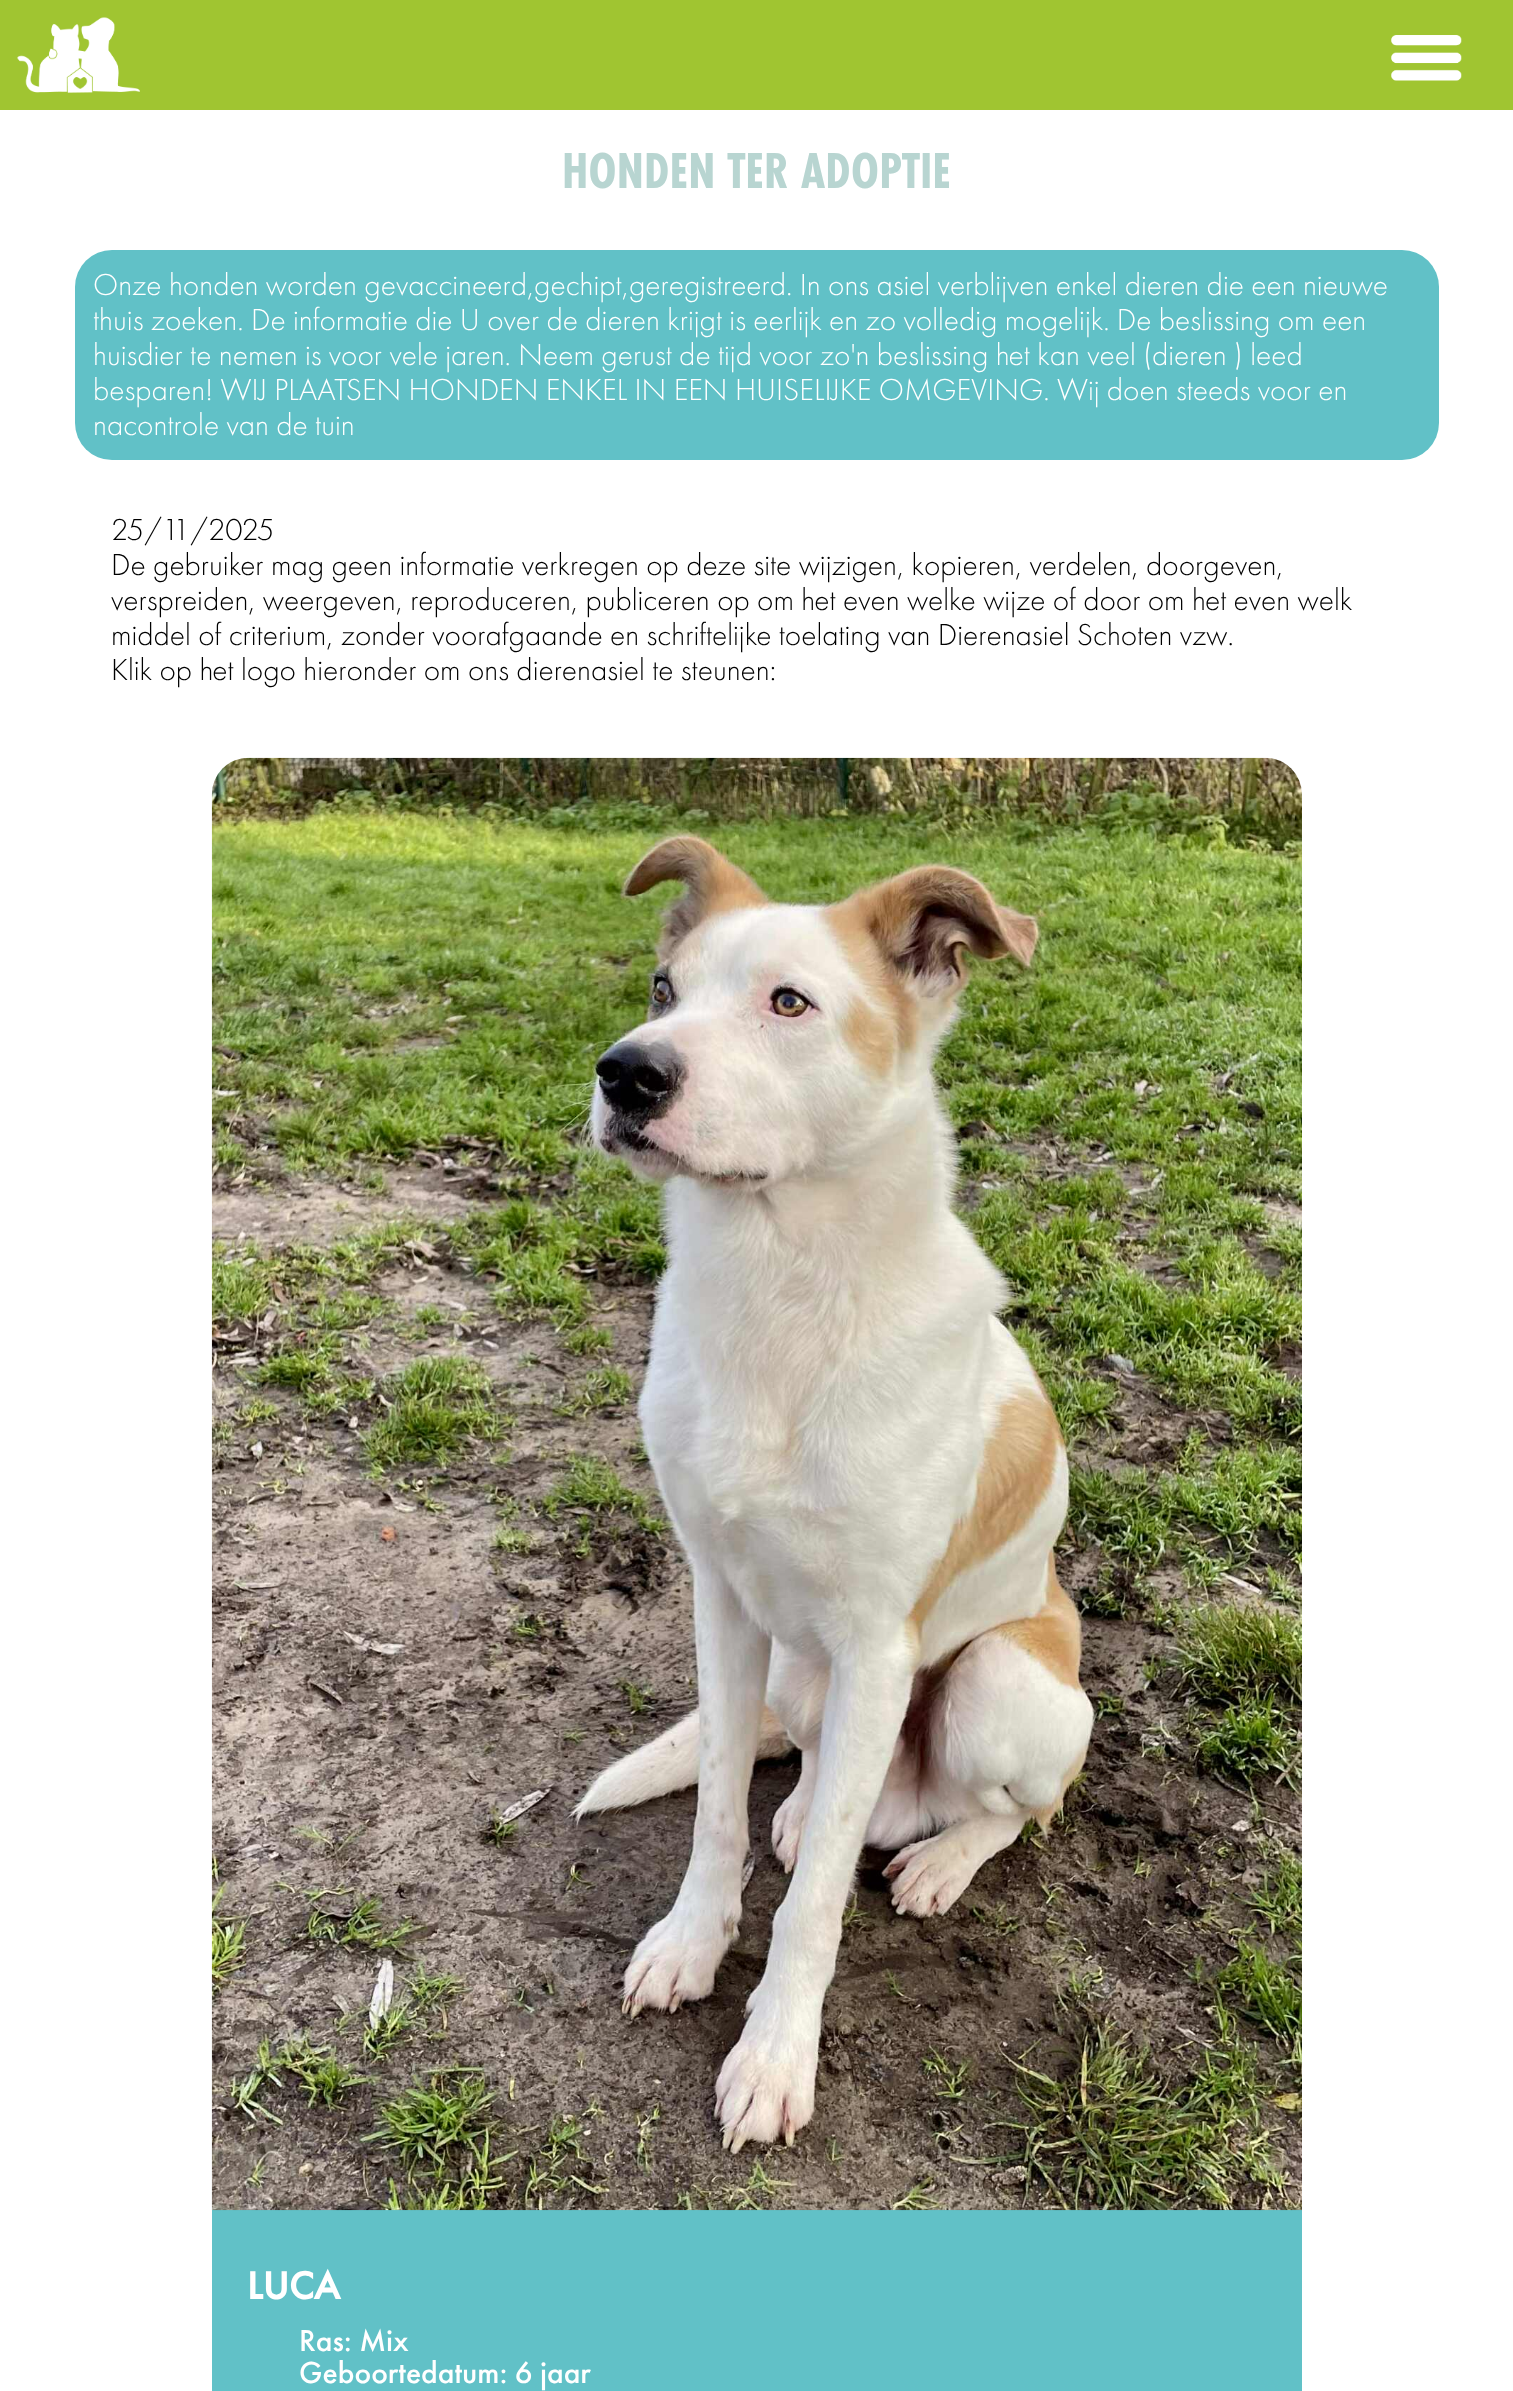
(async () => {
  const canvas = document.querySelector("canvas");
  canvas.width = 1513;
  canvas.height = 2391;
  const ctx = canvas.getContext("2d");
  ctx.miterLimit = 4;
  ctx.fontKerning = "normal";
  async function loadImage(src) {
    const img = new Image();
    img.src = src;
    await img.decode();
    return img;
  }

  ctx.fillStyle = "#ffffff";
  ctx.fillRect(0, 0, 1513, 2391);
  ctx.fillStyle = "#a0c531";
  ctx.fillRect(0, 0, 1513, 110);
  ctx.drawImage(await loadImage("img/1.png"), 17, 17, 123, 76);
  ctx.drawImage(await loadImage("img/2.png"), 1391, 35, 71, 46);
  ctx.fillStyle = "#61c1c7";
  ctx.beginPath();
  ctx.roundRect(75, 250, 1364, 210, 37);
  ctx.fill();
  ctx.fillRect(212, 2210, 1090, 181);
  ctx.drawImage(await loadImage("img/3.png"), 211, 757, 1091, 1454);
  ctx.font = "bold 52.5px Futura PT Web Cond";
  ctx.fillStyle = "#b8d5d1";
  ctx.fillText("HONDEN TER ADOPTIE", 562, 188);
  ctx.font = "300 31.5px Futura PT";
  ctx.fillStyle = "#ffffff";
  for (const [text, x, y] of [
    ["Onze honden worden gevaccineerd,gechipt,geregistreerd. In ons asiel verblijven enkel dieren die een nieuwe", 93, 295],
    ["thuis zoeken. De informatie die U over de dieren krijgt is eerlijk en zo volledig mogelijk. De beslissing om een", 93, 330],
    ["huisdier te nemen is voor vele jaren. Neem gerust de tijd voor zo'n beslissing het kan veel (dieren ) leed", 93, 365],
    ["besparen! WIJ PLAATSEN HONDEN ENKEL IN EEN HUISELIJKE OMGEVING. Wij doen steeds voor en", 93, 400],
    ["nacontrole van de tuin", 93, 435],
  ]) {
    ctx.fillText(text, x, y);
  }
  ctx.fillStyle = "#000000";
  for (const [text, x, y] of [
    ["25/11/2025", 111, 540],
    ["De gebruiker mag geen informatie verkregen op deze site wijzigen, kopieren, verdelen, doorgeven,", 111, 575],
    ["verspreiden, weergeven, reproduceren, publiceren op om het even welke wijze of door om het even welk", 111, 610],
    ["middel of criterium, zonder voorafgaande en schriftelijke toelating van Dierenasiel Schoten vzw.", 111, 645],
    ["Klik op het logo hieronder om ons dierenasiel te steunen:", 111, 680],
  ]) {
    ctx.fillText(text, x, y);
  }
  ctx.font = "bold 40px Futura PT";
  ctx.fillStyle = "#ffffff";
  ctx.fillText("LUCA", 247, 2299);
  ctx.font = "500 31.5px Futura PT";
  ctx.fillText("Ras: Mix", 299, 2351);
  ctx.fillText("Geboortedatum: 6 jaar", 299, 2383);
})();
